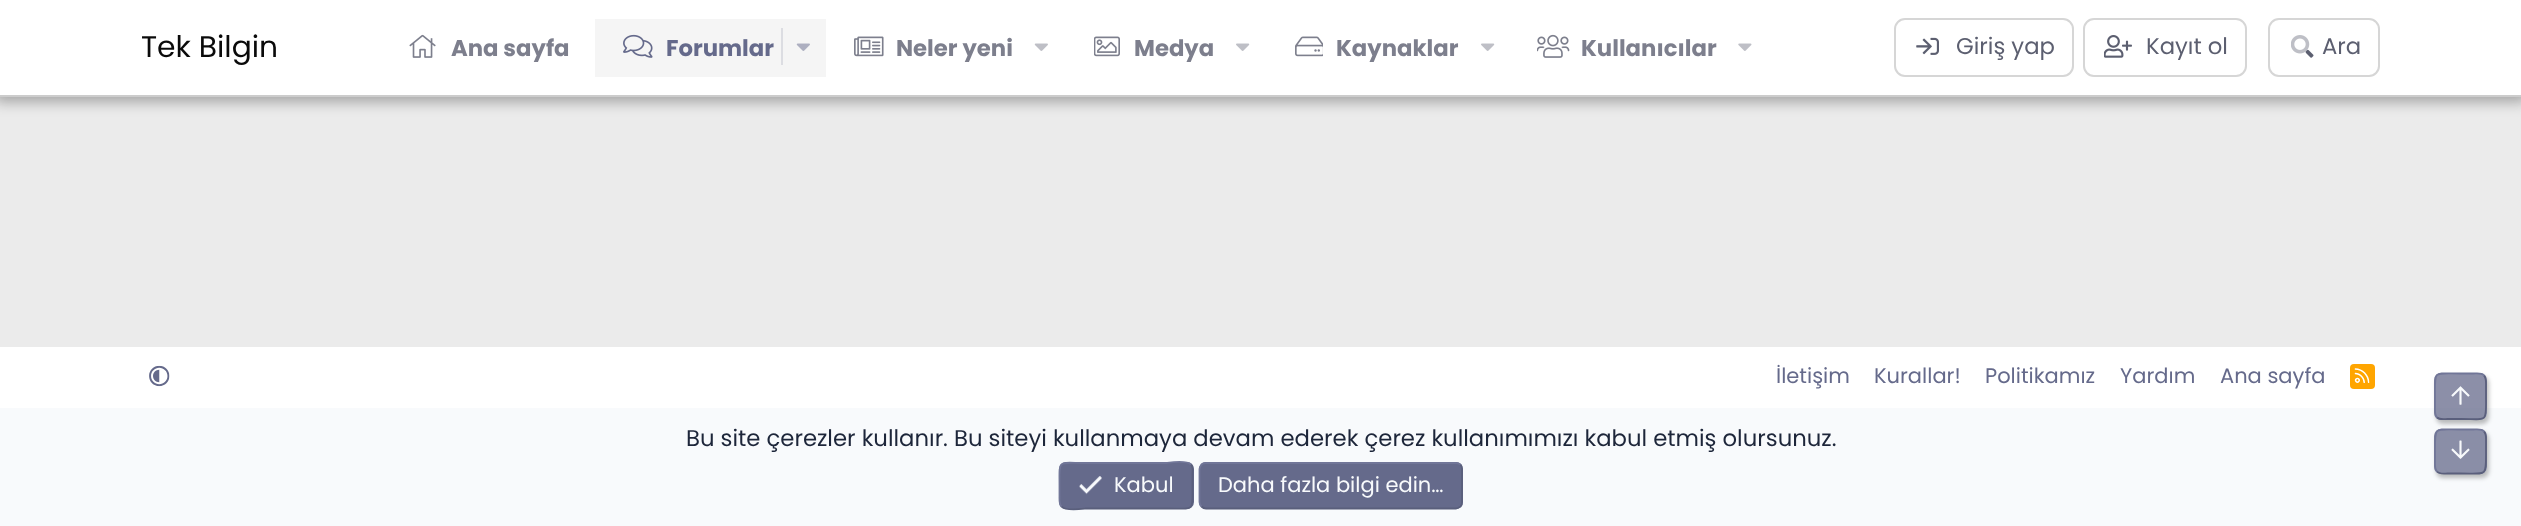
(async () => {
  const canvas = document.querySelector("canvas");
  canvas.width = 2521;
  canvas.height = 526;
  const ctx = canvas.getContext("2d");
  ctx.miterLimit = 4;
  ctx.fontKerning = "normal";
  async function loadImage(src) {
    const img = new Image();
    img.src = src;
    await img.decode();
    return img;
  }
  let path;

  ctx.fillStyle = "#ebebeb";
  ctx.fillRect(0, 0, 2521, 526);
  ctx.fillStyle = "rgba(0, 0, 0, 0.3)";
  ctx.filter = "blur(7px)";
  ctx.beginPath();
  ctx.rect(-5, -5, 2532, 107);
  ctx.fill();
  ctx.filter = "none";
  ctx.fillStyle = "#ffffff";
  ctx.fillRect(0, 0, 2521, 95);
  ctx.fillStyle = "#cccccc";
  ctx.fillRect(0, 95, 2521, 2);
  ctx.drawImage(await loadImage("img/1.png"), 409, 34, 27, 24);
  ctx.fillStyle = "#f5f5f5";
  ctx.fillRect(595, 19, 231, 58);
  ctx.drawImage(await loadImage("img/2.png"), 623, 34, 30, 24);
  ctx.fillStyle = "#dcdde2";
  ctx.fillRect(781, 28, 2, 37);
  ctx.drawImage(await loadImage("img/3.png"), 796, 43, 14, 8);
  ctx.drawImage(await loadImage("img/4.png"), 854, 36, 30, 21);
  ctx.drawImage(await loadImage("img/5.png"), 1034, 43, 14, 8);
  ctx.drawImage(await loadImage("img/6.png"), 1094, 36, 26, 21);
  ctx.drawImage(await loadImage("img/7.png"), 1236, 43, 14, 8);
  ctx.drawImage(await loadImage("img/8.png"), 1295, 36, 28, 21);
  ctx.drawImage(await loadImage("img/7.png"), 1481, 43, 14, 8);
  ctx.drawImage(await loadImage("img/9.png"), 1537, 34, 33, 24);
  ctx.drawImage(await loadImage("img/10.png"), 1738, 43, 14, 8);
  ctx.beginPath();
  ctx.roundRect(1895, 19, 178, 57, 10);
  ctx.strokeStyle = "#d6d6d6";
  ctx.lineWidth = 2;
  ctx.stroke();
  ctx.drawImage(await loadImage("img/11.png"), 1916, 37, 23, 18);
  ctx.beginPath();
  ctx.roundRect(2084, 19, 162, 57, 10);
  ctx.stroke();
  ctx.drawImage(await loadImage("img/12.png"), 2104, 35, 28, 23);
  ctx.beginPath();
  ctx.roundRect(2269, 19, 110, 57, 10);
  ctx.stroke();
  ctx.drawImage(await loadImage("img/13.png"), 2291, 35, 23, 23);
  ctx.fillStyle = "#ffffff";
  ctx.fillRect(0, 347, 2521, 61);
  ctx.drawImage(await loadImage("img/14.png"), 149, 365, 21, 22);
  ctx.fillStyle = "#ffa500";
  ctx.beginPath();
  ctx.roundRect(2350, 364, 25, 25, 4);
  ctx.fill();
  ctx.drawImage(await loadImage("img/15.png"), 2354, 368, 16, 15);
  ctx.fillStyle = "#f8fafc";
  ctx.fillRect(0, 408, 2521, 118);
  ctx.fillStyle = "#656a8b";
  ctx.beginPath();
  ctx.roundRect(1059, 462, 135, 47, 7);
  ctx.fill();
  path = new Path2D("M1191 464.5C1193.5 467 1192.5 471.5 1192.5 474.5V485.5C1192.5 512.5 1195.5 508.5 1166.5 508.5H1086C1085 508.5 1066 511.5 1061.5 506.5");
  ctx.strokeStyle = "#5a5f7c";
  ctx.lineWidth = 1.8;
  ctx.stroke(path);
  path = new Path2D("M1061.5 506.5C1059 504 1059.5 500 1059.5 496.5V485.5C1059.5 458.5 1057 463 1086 463H1166.5C1167 463 1186 460 1191 464.5");
  ctx.strokeStyle = "#717698";
  ctx.stroke(path);
  ctx.drawImage(await loadImage("img/16.png"), 1079, 476, 23, 19);
  ctx.beginPath();
  ctx.roundRect(1199, 462, 264, 47, 7);
  ctx.fill();
  path = new Path2D("M1460.5 464.5C1461.5 466 1462 467.5 1462 469V502C1462 504 1461.5 505.5 1460.5 506.5C1459 507.5 1457.5 508.5 1456 508.5H1206C1204 508.5 1202.5 507.5 1201.5 506.5");
  ctx.strokeStyle = "#5a5f7c";
  ctx.stroke(path);
  path = new Path2D("M1201.5 506.5C1200.5 505.5 1199.5 504 1199.5 502V469C1199.5 467.5 1200.5 466 1201.5 464.5C1202.5 463.5 1204 463 1206 463H1456C1457.5 463 1459 463.5 1460.5 464.5");
  ctx.strokeStyle = "#717698";
  ctx.stroke(path);
  ctx.save();
  path = new Path2D("M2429 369H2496V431H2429ZM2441 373H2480C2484 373 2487 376 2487 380V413C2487 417 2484 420 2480 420H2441C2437 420 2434 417 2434 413V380C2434 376 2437 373 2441 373Z");
  ctx.clip(path, "evenodd");
  ctx.fillStyle = "rgba(0, 0, 0, 0.25)";
  ctx.filter = "blur(2px)";
  ctx.beginPath();
  ctx.roundRect(2436, 376, 53, 48, 7);
  ctx.fill();
  ctx.filter = "none";
  ctx.restore();
  ctx.fillStyle = "rgba(101, 106, 139, 0.75)";
  ctx.beginPath();
  ctx.roundRect(2434, 373, 53, 47, 7);
  ctx.fill();
  path = new Path2D("M2484 375.5C2486.5 378 2486 382 2486 385.5V396.5C2486 423.5 2488.5 419 2460.5 419H2447.5C2444.5 419 2439.5 420 2437 417.5");
  ctx.strokeStyle = "#5a5f7c";
  ctx.stroke(path);
  path = new Path2D("M2437 417.5C2434.5 415 2435 410.5 2435 407.5V396.5C2435 369.5 2432.5 373.5 2460.5 373.5H2473.5C2476.5 373.5 2481.5 372.5 2484 375.5");
  ctx.strokeStyle = "#717698";
  ctx.stroke(path);
  ctx.drawImage(await loadImage("img/17.png"), 2451, 386, 19, 19);
  ctx.save();
  path = new Path2D("M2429 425H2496V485H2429ZM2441 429H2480C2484 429 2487 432 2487 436V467C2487 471 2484 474 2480 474H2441C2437 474 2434 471 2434 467V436C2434 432 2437 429 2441 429Z");
  ctx.clip(path, "evenodd");
  ctx.fillStyle = "rgba(0, 0, 0, 0.25)";
  ctx.filter = "blur(2px)";
  ctx.beginPath();
  ctx.roundRect(2436, 432, 53, 46, 7);
  ctx.fill();
  ctx.filter = "none";
  ctx.restore();
  ctx.beginPath();
  ctx.roundRect(2434, 429, 53, 45, 7);
  ctx.fill();
  path = new Path2D("M2484 431.5C2486.5 434 2486 438 2486 441V451.5C2486 477.5 2487.5 473.5 2460.5 473.5H2447.5C2444.5 473.5 2439.5 474.5 2437 471.5");
  ctx.strokeStyle = "#5a5f7c";
  ctx.stroke(path);
  path = new Path2D("M2437 471.5C2434.5 469 2435 465 2435 462V451.5C2435 425.5 2433.5 429.5 2460.5 429.5H2473.5C2476.5 429.5 2481.5 428.5 2484 431.5");
  ctx.strokeStyle = "#717698";
  ctx.stroke(path);
  ctx.drawImage(await loadImage("img/18.png"), 2451, 440, 19, 19);
  ctx.font = "29.75px Poppins";
  ctx.fillStyle = "#0a0a0a";
  ctx.fillText("Tek Bilgin", 141, 57);
  ctx.font = "bold 22.75px Poppins";
  ctx.fillStyle = "#7d7f8d";
  ctx.fillText("Ana sayfa", 451, 56);
  ctx.fillStyle = "#656a8b";
  ctx.fillText("Forumlar", 666, 56);
  ctx.fillStyle = "#7d7f8d";
  for (const [text, x, y] of [
    ["Neler yeni", 896, 56],
    ["Medya", 1134, 56],
    ["Kaynaklar", 1336, 56],
    ["Kullanıcılar", 1581, 56],
  ]) {
    ctx.fillText(text, x, y);
  }
  ctx.font = "22.75px Poppins";
  ctx.fillStyle = "#5c5f70";
  for (const [text, x, y] of [
    ["Giriş yap", 1956, 54],
    ["Kayıt ol", 2146, 54],
    ["Ara", 2322, 54],
  ]) {
    ctx.fillText(text, x, y);
  }
  ctx.font = "21px Poppins";
  ctx.fillStyle = "#656a8b";
  for (const [text, x, y] of [
    ["İletişim", 1776, 383],
    ["Kurallar!", 1874, 383],
    ["Politikamız", 1985, 383],
    ["Yardım", 2120, 383],
    ["Ana sayfa", 2220, 383],
  ]) {
    ctx.fillText(text, x, y);
  }
  ctx.font = "22.75px Poppins";
  ctx.fillStyle = "#1d263a";
  ctx.fillText("Bu site çerezler kullanır. Bu siteyi kullanmaya devam ederek çerez kullanımımızı kabul etmiş olursunuz.", 686, 446);
  ctx.font = "21px Poppins";
  ctx.fillStyle = "#f8fafc";
  ctx.fillText("Kabul", 1114, 492);
  ctx.fillText("Daha fazla bilgi edin…", 1218, 492);
})();
